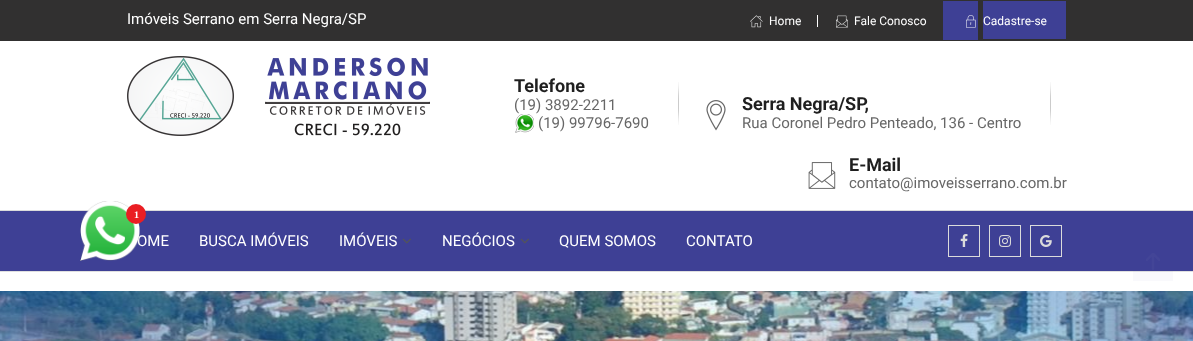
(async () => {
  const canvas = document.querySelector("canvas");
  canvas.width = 1193;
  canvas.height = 341;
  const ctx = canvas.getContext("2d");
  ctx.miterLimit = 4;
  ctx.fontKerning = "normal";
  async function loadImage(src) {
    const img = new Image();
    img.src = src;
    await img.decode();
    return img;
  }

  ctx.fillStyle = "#ffffff";
  ctx.fillRect(0, 0, 1193, 341);
  ctx.fillStyle = "#313030";
  ctx.fillRect(0, 0, 1193, 41);
  ctx.drawImage(await loadImage("img/1.png"), 750, 15, 13, 13);
  ctx.fillStyle = "#ffffff";
  ctx.fillRect(817, 15, 1, 12);
  ctx.drawImage(await loadImage("img/2.png"), 836, 15, 12, 13);
  ctx.fillStyle = "#3e4095";
  ctx.fillRect(943, 1, 35, 39);
  ctx.drawImage(await loadImage("img/3.png"), 966, 15, 10, 13);
  ctx.fillRect(983, 1, 83, 38);
  ctx.fillStyle = "#dbdbdb";
  ctx.fillRect(0, 210, 1193, 1);
  ctx.drawImage(await loadImage("img/4.png"), 127, 56, 303, 80);
  ctx.drawImage(await loadImage("img/5.png"), 515, 114, 19, 19);
  ctx.drawImage(await loadImage("img/6.png"), 678, 82, 1, 43);
  ctx.drawImage(await loadImage("img/7.png"), 706, 100, 20, 31);
  ctx.drawImage(await loadImage("img/6.png"), 1050, 82, 1, 43);
  ctx.drawImage(await loadImage("img/8.png"), 808, 162, 28, 27);
  ctx.fillStyle = "#3e4095";
  ctx.fillRect(0, 211, 1193, 60);
  ctx.fillStyle = "#e0e0e0";
  ctx.fillRect(0, 271, 1193, 1);
  ctx.drawImage(await loadImage("img/9.png"), 402, 238, 9, 6);
  ctx.drawImage(await loadImage("img/9.png"), 520, 238, 9, 6);
  ctx.strokeStyle = "#dbdbdb";
  ctx.strokeRect(948.5, 225.5, 31, 31);
  ctx.drawImage(await loadImage("img/10.png"), 960, 234, 8, 13);
  ctx.strokeRect(989.5, 225.5, 31, 31);
  ctx.drawImage(await loadImage("img/11.png"), 999, 235, 12, 12);
  ctx.strokeRect(1030.5, 225.5, 31, 31);
  ctx.drawImage(await loadImage("img/12.png"), 1040, 235, 12, 12);
  ctx.fillStyle = "rgba(62, 64, 149, 0.03)";
  ctx.fillRect(1133, 271, 40, 10);
  ctx.drawImage(await loadImage("img/14.png"), 1146, 253, 14, 17);
  ctx.drawImage(await loadImage("img/15.png"), 0, 291, 1193, 50);
  ctx.font = "15px Roboto";
  ctx.fillStyle = "#ffffff";
  ctx.fillText("Imóveis Serrano em Serra Negra/SP", 127, 24);
  ctx.font = "12px Roboto";
  for (const [text, x, y] of [
    ["Home", 769, 25],
    ["Fale Conosco", 854, 25],
    ["Cadastre-se", 983, 25],
  ]) {
    ctx.fillText(text, x, y);
  }
  ctx.font = "bold 18px Roboto";
  ctx.fillStyle = "#1f1f1f";
  ctx.fillText("Telefone", 514, 92);
  ctx.font = "15px Roboto";
  ctx.fillStyle = "#676767";
  ctx.fillText("(19) 3892-2211", 514, 110);
  ctx.fillText("(19) 99796-7690", 538, 128);
  ctx.font = "bold 18px Roboto";
  ctx.fillStyle = "#1f1f1f";
  ctx.fillText("Serra Negra/SP,", 742, 110);
  ctx.font = "15px Roboto";
  ctx.fillStyle = "#676767";
  ctx.fillText("Rua Coronel Pedro Penteado, 136 - Centro", 742, 128);
  ctx.font = "bold 18px Roboto";
  ctx.fillStyle = "#1f1f1f";
  ctx.fillText("E-Mail", 849, 171);
  ctx.font = "15px Roboto";
  ctx.fillStyle = "#676767";
  ctx.fillText("contato@imoveisserrano.com.br", 849, 188);
  ctx.fillStyle = "#ffffff";
  for (const [text, x, y] of [
    ["OME", 137, 246],
    ["BUSCA IMÓVEIS", 199, 246],
    ["IMÓVEIS", 339, 246],
    ["NEGÓCIOS", 442, 246],
    ["QUEM SOMOS", 559, 246],
    ["CONTATO", 686, 246],
  ]) {
    ctx.fillText(text, x, y);
  }
  ctx.drawImage(await loadImage("img/13.png"), 80, 201, 60, 60);
  ctx.fillStyle = "#ea1e23";
  ctx.beginPath();
  ctx.arc(136, 214, 10, 0, Math.PI * 2);
  ctx.fill();
  ctx.font = "bold 10px Liberation Serif";
  ctx.fillStyle = "#ffffff";
  ctx.fillText("1", 134, 218);
})();
